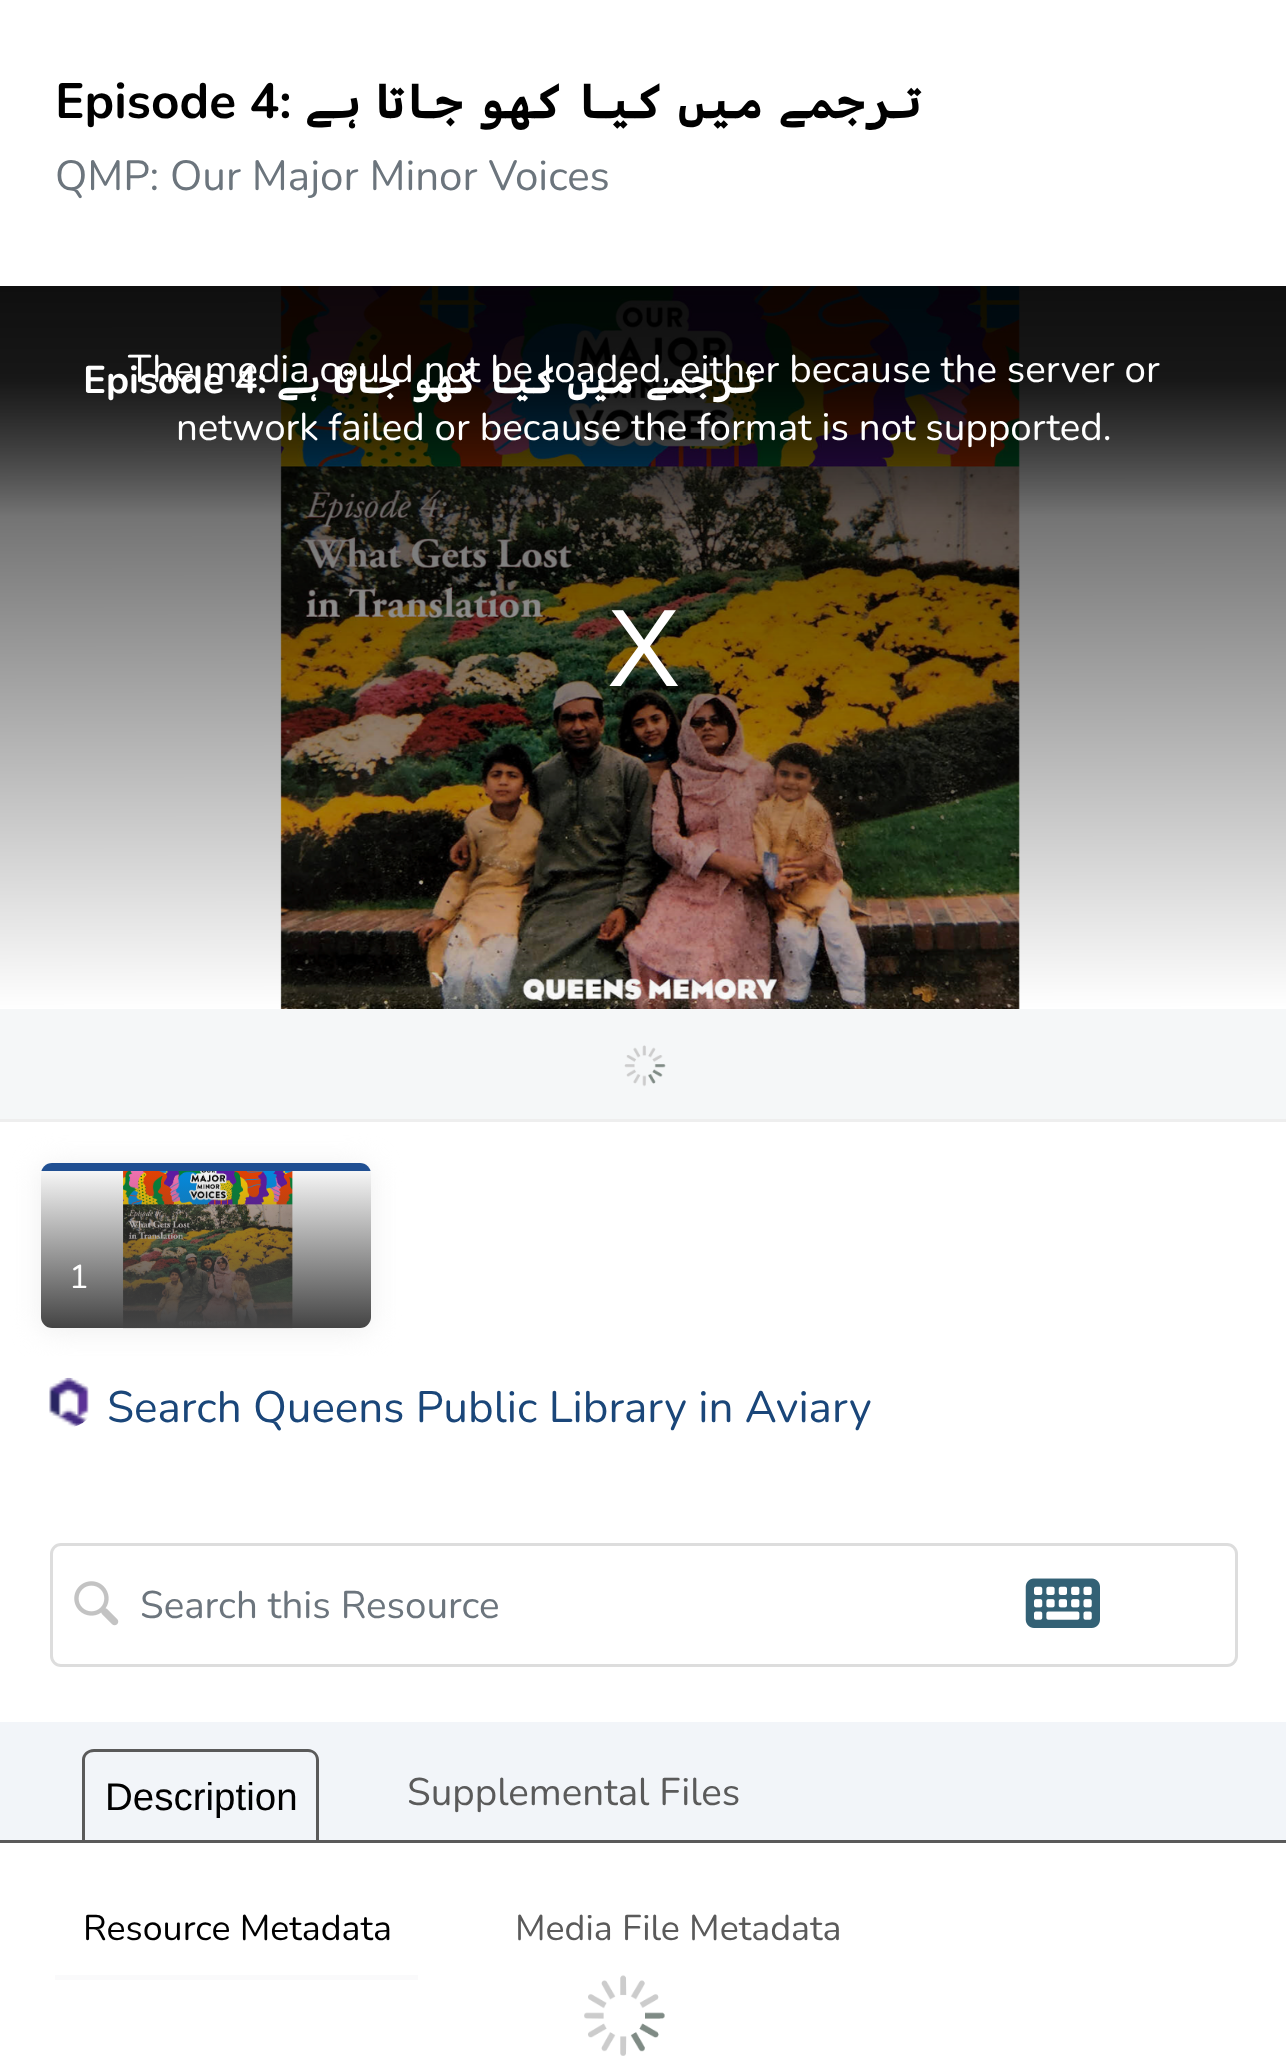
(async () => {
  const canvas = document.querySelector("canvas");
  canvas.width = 1286;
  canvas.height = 2069;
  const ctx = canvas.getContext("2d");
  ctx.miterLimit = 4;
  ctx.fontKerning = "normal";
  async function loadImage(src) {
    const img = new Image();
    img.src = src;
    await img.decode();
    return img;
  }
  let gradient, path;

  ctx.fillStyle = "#ffffff";
  ctx.fillRect(0, 0, 1286, 2069);
  ctx.drawImage(await loadImage("img/1.png"), 0, 286, 1286, 723);
  ctx.fillStyle = "#f5f7f8";
  ctx.fillRect(0, 1009, 1286, 110);
  ctx.drawImage(await loadImage("img/2.png"), 624, 1045, 42, 42);
  ctx.fillStyle = "#eeeeee";
  ctx.fillRect(0, 1119, 1286, 3);
  ctx.save();
  ctx.beginPath();
  ctx.rect(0, 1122, 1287, 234);
  ctx.clip();
  ctx.filter = "blur(14px)";
  ctx.beginPath();
  ctx.roundRect(41, 1166, 330, 165, 11);
  ctx.fill();
  ctx.filter = "none";
  ctx.restore();
  ctx.fillStyle = "#ffffff";
  ctx.beginPath();
  ctx.roundRect(41, 1163, 330, 165, 11);
  ctx.fill();
  ctx.drawImage(await loadImage("img/3.png"), 123, 1171, 170, 158);
  gradient = ctx.createLinearGradient(208, 1163, 208, 1328);
  gradient.addColorStop(0, "rgba(68, 68, 68, 0)");
  gradient.addColorStop(1, "#444444");
  ctx.fillStyle = gradient;
  ctx.beginPath();
  ctx.roundRect(41, 1163, 330, 165, 11);
  ctx.fill();
  ctx.save();
  ctx.beginPath();
  ctx.roundRect(41, 1163, 330, 165, 11);
  ctx.clip();
  ctx.fillStyle = "#204f92";
  ctx.fillRect(41, 1163, 330, 8);
  ctx.restore();
  ctx.drawImage(await loadImage("img/4.png"), 49, 1377, 40, 50);
  ctx.beginPath();
  ctx.roundRect(51.5, 1544.5, 1185, 121, 9.5);
  ctx.strokeStyle = "#dddddd";
  ctx.lineWidth = 3;
  ctx.stroke();
  ctx.drawImage(await loadImage("img/5.png"), 74, 1581, 45, 45);
  ctx.drawImage(await loadImage("img/6.png"), 1025, 1578, 75, 50);
  ctx.fillStyle = "#f2f5f9";
  ctx.fillRect(0, 1722, 1286, 118);
  ctx.fillStyle = "#5a5a5a";
  ctx.fillRect(0, 1840, 1286, 3);
  path = new Path2D("M94 1749H308C314 1749 319 1754 319 1760V1840H82V1760C82 1754 87 1749 94 1749ZM94 1752H308C313 1752 316 1755 316 1760V1840H85V1760C85 1755 89 1752 94 1752Z");
  ctx.fill(path, "evenodd");
  ctx.fillStyle = "#fafafb";
  ctx.fillRect(55, 1975, 363, 5);
  ctx.drawImage(await loadImage("img/7.png"), 584, 1975, 81, 81);
  ctx.font = "bold 49.5px Nunito";
  ctx.fillStyle = "#000000";
  ctx.fillText("Episode 4:", 55, 118);
  ctx.wordSpacing = "-15.5px";
  ctx.direction = "rtl";
  ctx.font = "bold 49.5px Cascadia Code";
  ctx.fillText("ترجمے میں کیا کھو جاتا ہے", 923, 118);
  ctx.wordSpacing = "0px";
  ctx.direction = "ltr";
  ctx.font = "42.1px Nunito";
  ctx.fillStyle = "#6c757d";
  ctx.fillText("QMP: Our Major Minor Voices", 55, 190);
  ctx.font = "38.5px Nunito";
  ctx.fillStyle = "#ffffff";
  ctx.fillText("network failed or because the format is not supported.", 176, 440);
  ctx.font = "110px Liberation Sans";
  ctx.fillText("X", 607, 686);
  ctx.font = "bold 38.5px Nunito";
  ctx.fillText("Episode 4:", 83, 393);
  ctx.wordSpacing = "-12px";
  ctx.direction = "rtl";
  ctx.font = "bold 38.5px Cascadia Code";
  ctx.fillText("ترجمے میں کیا کھو جاتا ہے", 758, 393);
  ctx.wordSpacing = "0px";
  ctx.direction = "ltr";
  ctx.font = "38.5px Nunito";
  ctx.fillText("The media could not be loaded, either because the server or", 128, 382);
  ctx.font = "33px Nunito";
  ctx.fillText("1", 69, 1288);
  ctx.font = "44px Nunito";
  ctx.fillStyle = "#1a4679";
  ctx.fillText("Search Queens Public Library in Aviary", 107, 1422);
  ctx.font = "38.5px Nunito";
  ctx.fillStyle = "#6c757d";
  ctx.fillText("Search this Resource", 140, 1618);
  ctx.font = "38.5px Liberation Sans";
  ctx.fillStyle = "#000000";
  ctx.fillText("Description", 105, 1810);
  ctx.font = "38.5px Nunito";
  ctx.fillStyle = "#5a5a5a";
  ctx.fillText("Supplemental Files", 407, 1805);
  ctx.font = "35.75px Nunito";
  ctx.fillStyle = "#000000";
  ctx.fillText("Resource Metadata", 83, 1940);
  ctx.fillStyle = "#5a5a5a";
  ctx.fillText("Media File Metadata", 515, 1940);
})();
